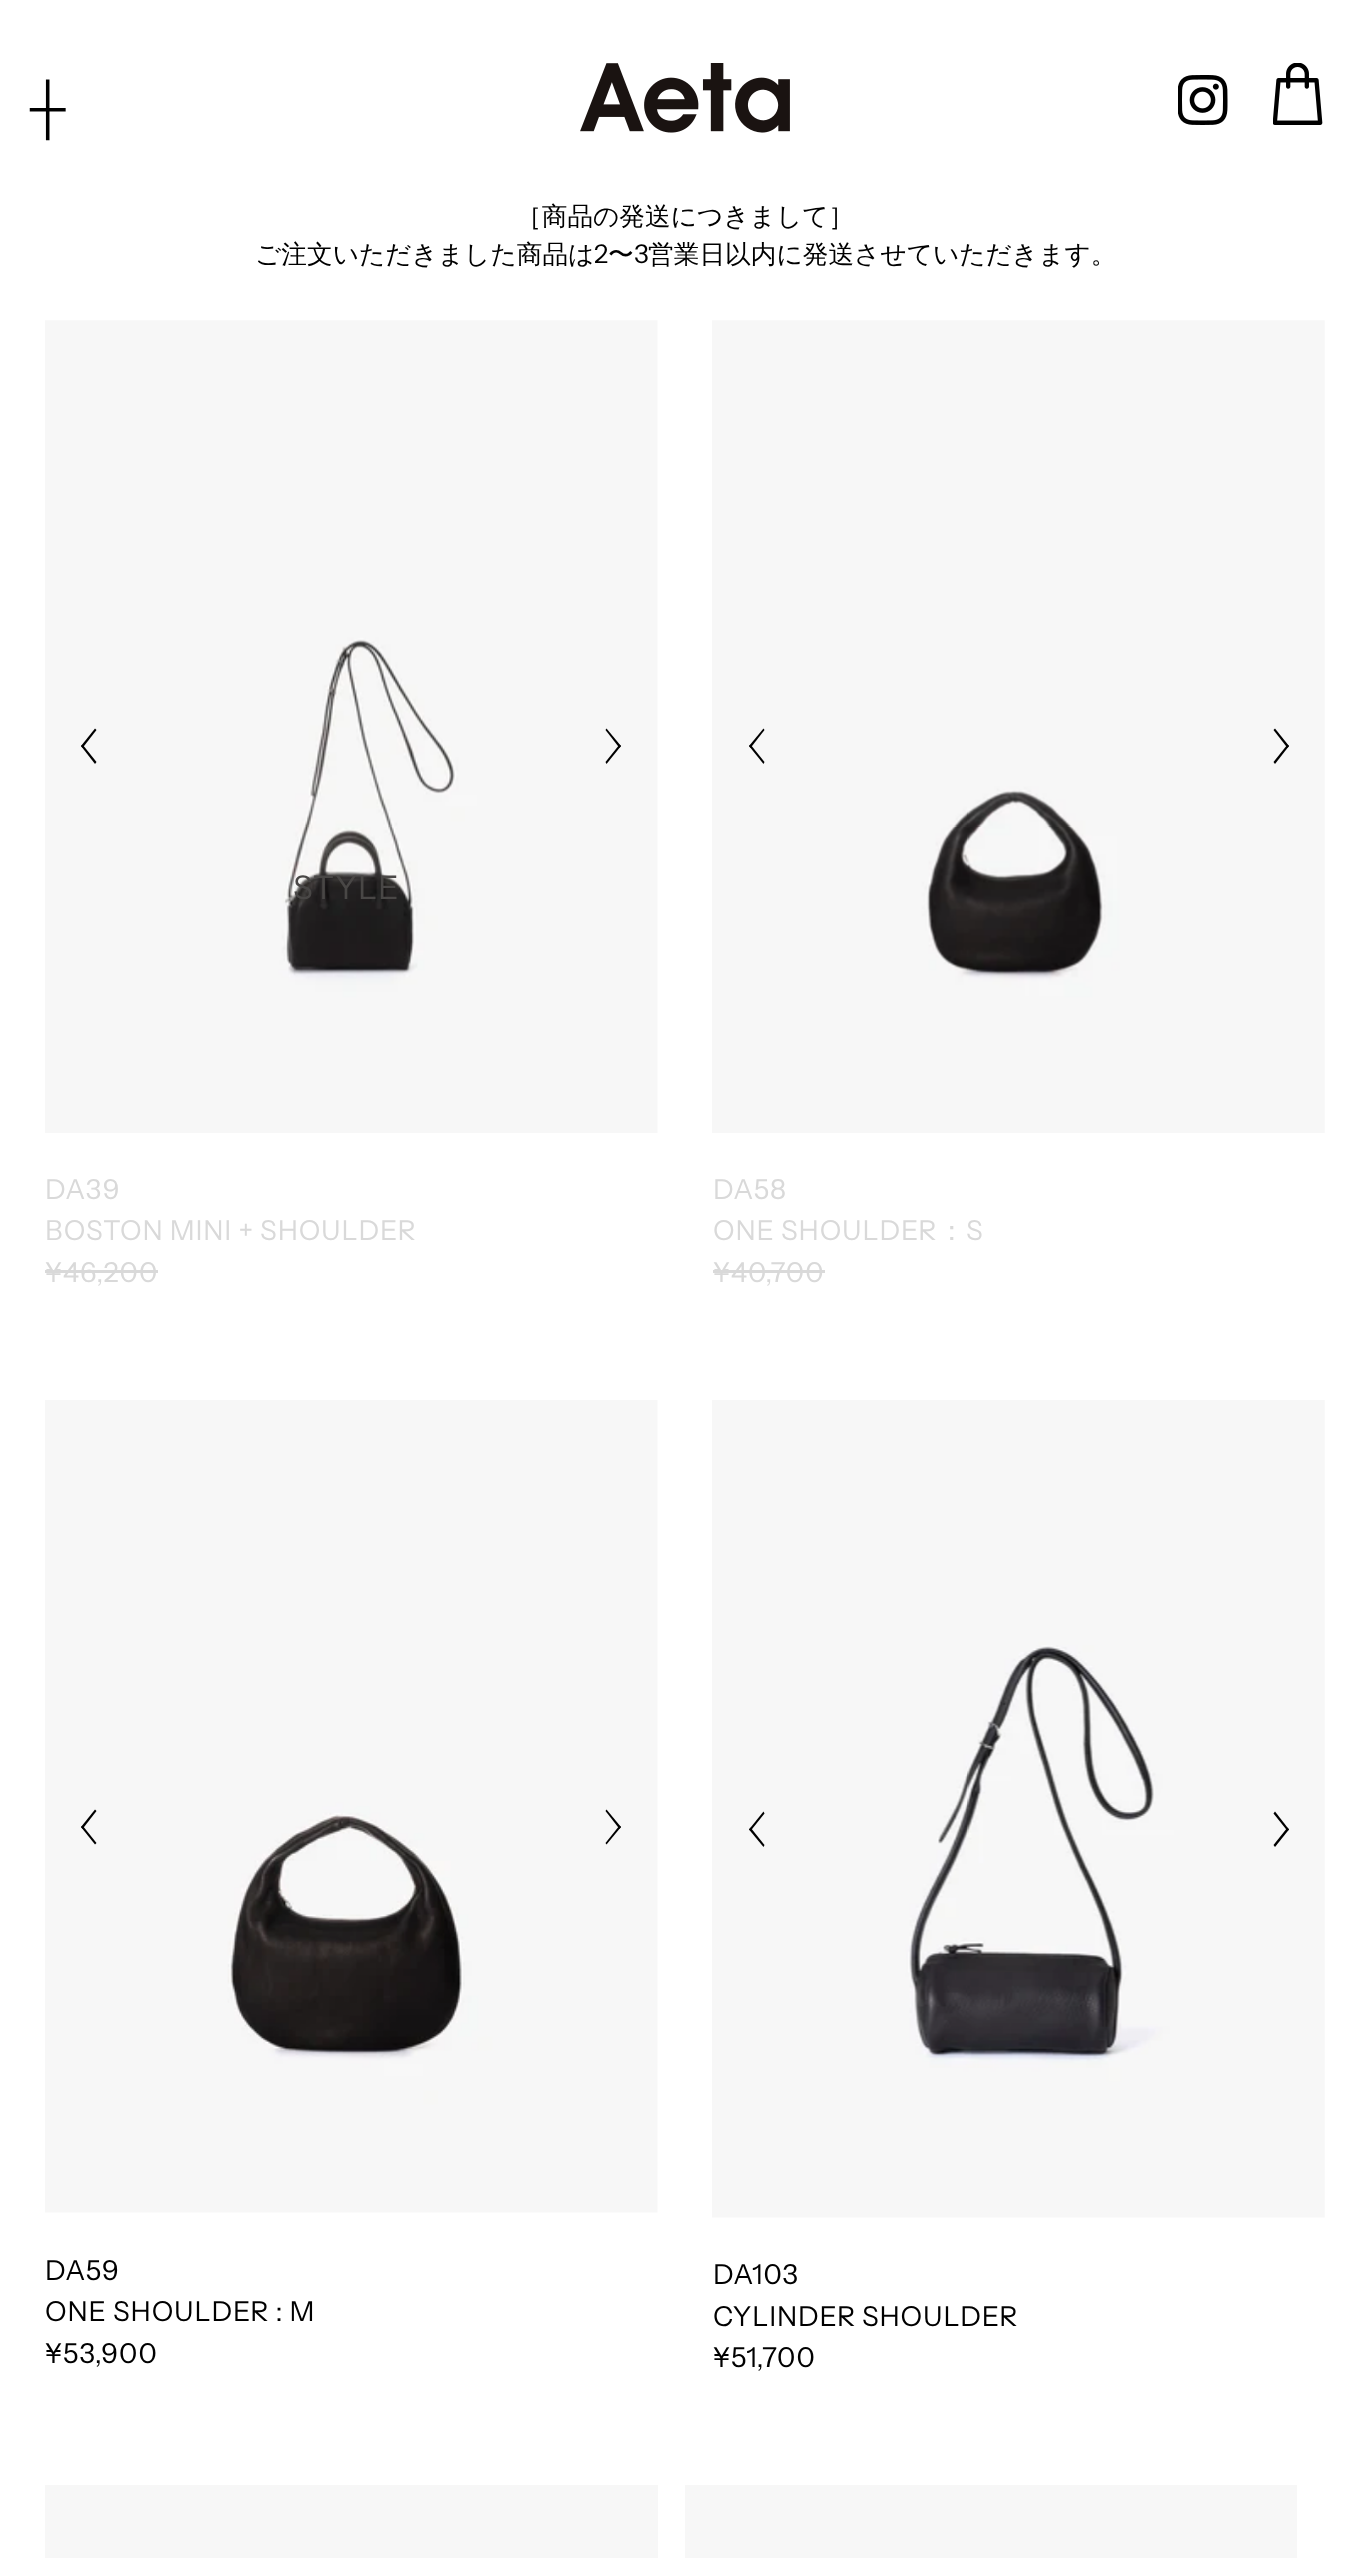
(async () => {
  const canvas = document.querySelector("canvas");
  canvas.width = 1368;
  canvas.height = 2558;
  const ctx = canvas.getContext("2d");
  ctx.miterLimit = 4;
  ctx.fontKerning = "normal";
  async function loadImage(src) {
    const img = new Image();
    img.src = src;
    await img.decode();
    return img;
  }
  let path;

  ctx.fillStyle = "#ffffff";
  ctx.fillRect(0, 0, 1368, 2558);
  ctx.drawImage(await loadImage("img/1.png"), 580, 63, 210, 70);
  ctx.drawImage(await loadImage("img/2.png"), 1178, 75, 50, 50);
  ctx.drawImage(await loadImage("img/3.png"), 1273, 63, 50, 62);
  ctx.drawImage(await loadImage("img/4.png"), 45, 320, 613, 813);
  ctx.fillStyle = "#000000";
  path = new Path2D("M82.5 744.5L96.5 762L95 764L81 746Z");
  ctx.fill(path);
  path = new Path2D("M95 728.5L96.5 730L82.5 748L81 746Z");
  ctx.fill(path);
  path = new Path2D("M619.5 748L605.5 730L606.5 728.5L621 746Z");
  ctx.fill(path);
  path = new Path2D("M606.5 764L605.5 762L619.5 744.5L621 746Z");
  ctx.fill(path);
  ctx.fillStyle = "#d9d9d9";
  ctx.fillRect(45, 1270, 113, 3);
  ctx.drawImage(await loadImage("img/5.png"), 712, 320, 613, 813);
  ctx.fillStyle = "#000000";
  path = new Path2D("M750.5 744.5L764.5 762L763.5 764L749 746Z");
  ctx.fill(path);
  path = new Path2D("M763.5 728.5L764.5 730L750.5 748L749 746Z");
  ctx.fill(path);
  path = new Path2D("M1287.5 748L1273.5 730L1275 728.5L1289 746Z");
  ctx.fill(path);
  path = new Path2D("M1275 764L1273.5 762L1287.5 744.5L1289 746Z");
  ctx.fill(path);
  ctx.fillStyle = "#d9d9d9";
  ctx.fillRect(713, 1270, 112, 3);
  ctx.drawImage(await loadImage("img/6.png"), 45, 1400, 613, 813);
  ctx.fillStyle = "#000000";
  path = new Path2D("M82.5 1825.5L96.5 1843L95 1844.5L81 1827Z");
  ctx.fill(path);
  path = new Path2D("M95 1809.5L96.5 1811L82.5 1829L81 1827Z");
  ctx.fill(path);
  path = new Path2D("M619.5 1829L605.5 1811L606.5 1809.5L621 1827Z");
  ctx.fill(path);
  path = new Path2D("M606.5 1844.5L605.5 1843L619.5 1825.5L621 1827Z");
  ctx.fill(path);
  ctx.drawImage(await loadImage("img/7.png"), 712, 1400, 613, 818);
  path = new Path2D("M750.5 1827.5L764.5 1845L763.5 1847L749 1829.5Z");
  ctx.fill(path);
  path = new Path2D("M763.5 1811.5L764.5 1813.5L750.5 1831L749 1829.5Z");
  ctx.fill(path);
  path = new Path2D("M1287.5 1831L1273.5 1813.5L1275 1811.5L1289 1829.5Z");
  ctx.fill(path);
  path = new Path2D("M1275 1847L1273.5 1845L1287.5 1827.5L1289 1829.5Z");
  ctx.fill(path);
  ctx.fillStyle = "#f7f7f7";
  ctx.fillRect(45, 2485, 613, 73);
  ctx.fillRect(685, 2485, 612, 73);
  ctx.font = "50px Liberation Sans";
  ctx.fillStyle = "#000000";
  ctx.fillText("┼", 30, 125);
  ctx.letterSpacing = "1px";
  ctx.font = "32.5px Instrument Sans";
  ctx.fillStyle = "#494746";
  ctx.fillText("STYLE", 293, 899);
  ctx.letterSpacing = "0px";
  ctx.font = "500 25.7px WenQuanYi Zen Hei";
  ctx.fillStyle = "#000000";
  ctx.fillText("［商品の発送につきまして］", 516, 225);
  ctx.fillText("ご注文いただきました商品は", 255, 263);
  ctx.font = "25.7px Instrument Sans";
  ctx.fillText("2", 594, 263);
  ctx.font = "500 25.7px WenQuanYi Zen Hei";
  ctx.fillText("〜", 608, 263);
  ctx.font = "25.7px Instrument Sans";
  ctx.fillText("3", 634, 263);
  ctx.font = "500 25.7px WenQuanYi Zen Hei";
  ctx.fillText("営業日以内に発送させていただきます。", 648, 263);
  ctx.letterSpacing = "0.8px";
  ctx.font = "27.5px Instrument Sans";
  ctx.fillStyle = "#d9d9d9";
  for (const [text, x, y] of [
    ["DA39", 45, 1199],
    ["BOSTON MINI + SHOULDER", 45, 1240],
    ["¥46,200", 45, 1282],
    ["DA58", 713, 1199],
    ["ONE SHOULDER", 713, 1240],
  ]) {
    ctx.fillText(text, x, y);
  }
  ctx.font = "500 27.5px WenQuanYi Zen Hei";
  ctx.fillText("：", 938, 1240);
  ctx.font = "27.5px Instrument Sans";
  ctx.fillText("S", 966, 1240);
  ctx.fillText("¥40,700", 713, 1282);
  ctx.fillStyle = "#000000";
  for (const [text, x, y] of [
    ["DA59", 45, 2280],
    ["ONE SHOULDER : M", 45, 2321],
    ["¥53,900", 45, 2363],
    ["DA103", 713, 2284],
    ["CYLINDER SHOULDER", 713, 2326],
    ["¥51,700", 713, 2367],
  ]) {
    ctx.fillText(text, x, y);
  }
})();
